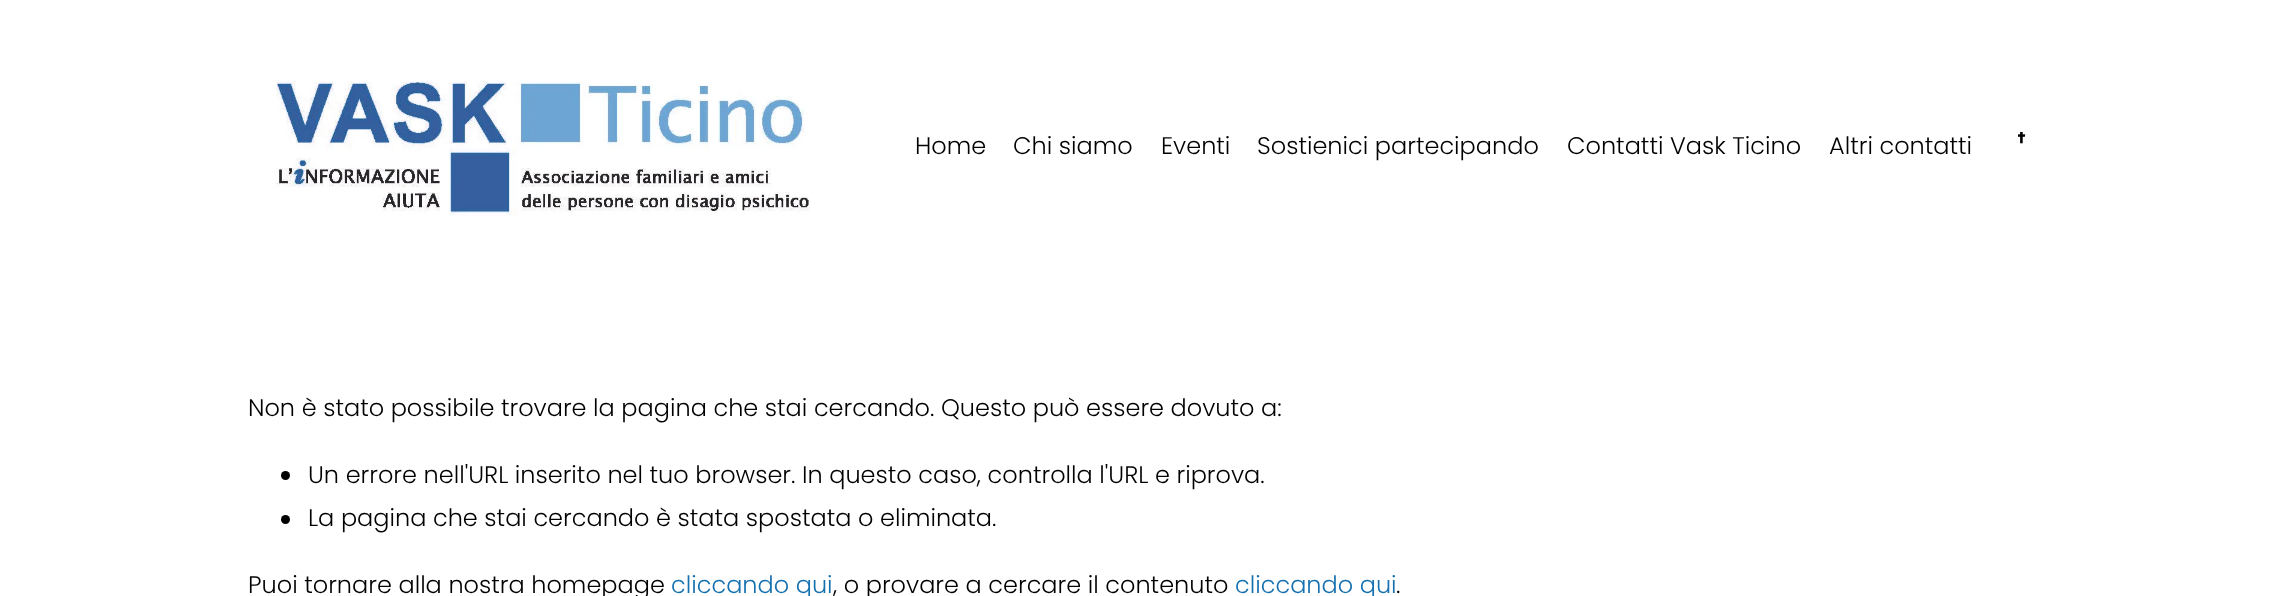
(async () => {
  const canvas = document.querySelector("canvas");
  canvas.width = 2295;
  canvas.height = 596;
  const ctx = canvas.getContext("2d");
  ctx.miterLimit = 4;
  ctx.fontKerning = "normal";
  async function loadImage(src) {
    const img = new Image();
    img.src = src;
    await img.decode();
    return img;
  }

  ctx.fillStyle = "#ffffff";
  ctx.fillRect(0, 0, 2295, 596);
  ctx.drawImage(await loadImage("img/1.png"), 276, 81, 533, 136);
  ctx.drawImage(await loadImage("img/2.png"), 2018, 132, 8, 12);
  ctx.fillStyle = "#000000";
  ctx.beginPath();
  ctx.arc(285.5, 475.5, 4.5, 0, Math.PI * 2);
  ctx.fill();
  ctx.beginPath();
  ctx.arc(285.5, 519.5, 4.5, 0, Math.PI * 2);
  ctx.fill();
  ctx.font = "300 24px Poppins";
  for (const [text, x, y] of [
    ["Home", 915, 154],
    ["Chi siamo", 1013, 154],
    ["Eventi", 1161, 154],
    ["Sostienici partecipando", 1257, 154],
    ["Contatti Vask Ticino", 1567, 154],
    ["Altri contatti", 1829, 154],
    ["Non è stato possibile trovare la pagina che stai cercando. Questo può essere dovuto a:", 248, 416],
    ["Un errore nell'URL inserito nel tuo browser. In questo caso, controlla l'URL e riprova.", 308, 483],
    ["La pagina che stai cercando è stata spostata o eliminata.", 308, 526],
    ["Puoi tornare alla nostra homepage", 248, 593],
  ]) {
    ctx.fillText(text, x, y);
  }
  ctx.fillStyle = "#1470af";
  ctx.fillText("cliccando qui", 671, 593);
  ctx.fillStyle = "#000000";
  ctx.fillText(", o provare a cercare il contenuto", 833, 593);
  ctx.fillStyle = "#1470af";
  ctx.fillText("cliccando qui", 1235, 593);
  ctx.fillStyle = "#000000";
  ctx.fillText(".", 1396, 593);
})();
